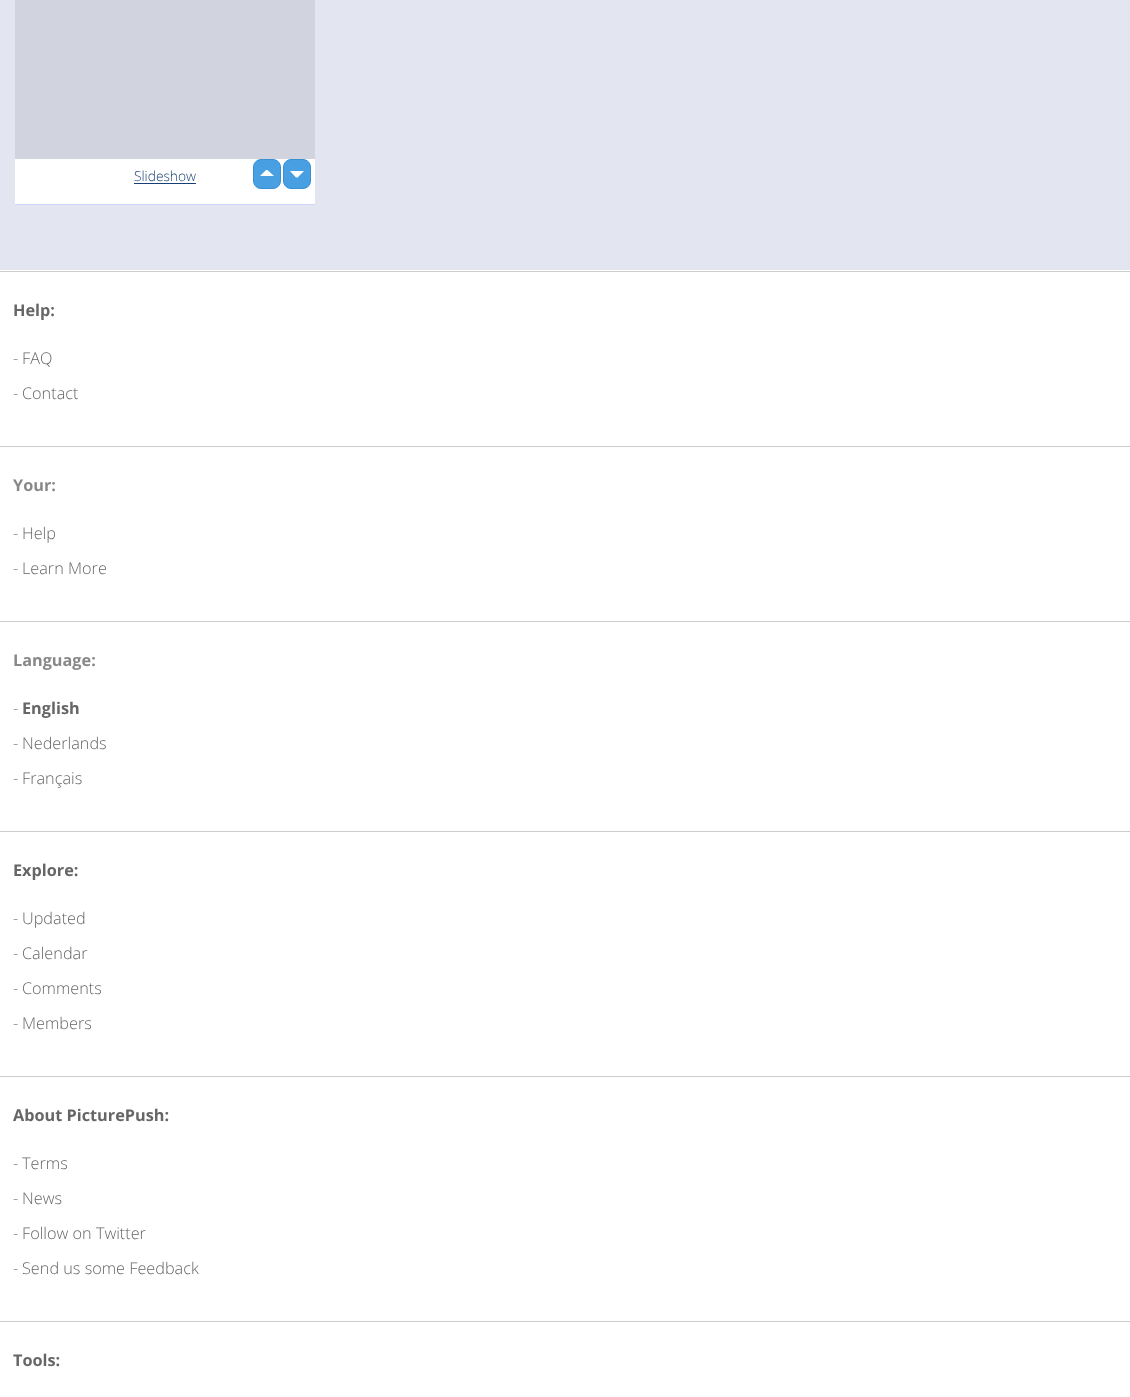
(async () => {
  const canvas = document.querySelector("canvas");
  canvas.width = 1130;
  canvas.height = 1397;
  const ctx = canvas.getContext("2d");
  ctx.miterLimit = 4;
  ctx.fontKerning = "normal";
  let path;

  ctx.fillStyle = "#e3e6f1";
  ctx.fillRect(0, 0, 1130, 1397);
  for (const [x, y, w, h, color] of [
    [15, 0, 300, 159, "#d1d4de"],
    [15, 204, 300, 1, "#cfd4ff"],
    [15, 159, 300, 45, "#ffffff"],
    [134, 183, 62, 1, "#163f73"],
  ]) {
    ctx.fillStyle = color;
    ctx.fillRect(x, y, w, h);
  }
  ctx.fillStyle = "#48a0e3";
  ctx.beginPath();
  ctx.roundRect(253.5, 159.5, 27, 29, 7.5);
  ctx.fill();
  ctx.strokeStyle = "#3890d3";
  ctx.stroke();
  ctx.beginPath();
  ctx.roundRect(283.5, 159.5, 27, 29, 7.5);
  ctx.fill();
  ctx.stroke();
  ctx.fillStyle = "#ffffff";
  path = new Path2D("M274 176H260L266 170H267.5ZM290 171H304L297.5 177.5H296Z");
  ctx.fill(path);
  for (const [x, y, w, h, color] of [
    [0, 270, 1130, 1127, "#ffffff"],
    [0, 271, 1130, 1, "#cccccc"],
    [0, 446, 1130, 1, "#cccccc"],
    [0, 621, 1130, 1, "#cccccc"],
    [0, 831, 1130, 1, "#cccccc"],
    [0, 1076, 1130, 1, "#cccccc"],
    [0, 1321, 1130, 1, "#cccccc"],
  ]) {
    ctx.fillStyle = color;
    ctx.fillRect(x, y, w, h);
  }
  ctx.font = "300 13.75px Open Sans";
  ctx.fillStyle = "#163f73";
  ctx.fillText("Slideshow", 134, 181);
  ctx.font = "bold 16.25px Open Sans";
  ctx.fillStyle = "#666666";
  ctx.fillText("Help:", 13, 316);
  ctx.font = "300 16.25px Open Sans";
  ctx.fillStyle = "#888888";
  ctx.fillText("-", 13, 364);
  ctx.fillStyle = "#666666";
  ctx.fillText("FAQ", 22, 364);
  ctx.fillStyle = "#888888";
  ctx.fillText("-", 13, 399);
  ctx.fillStyle = "#666666";
  ctx.fillText("Contact", 22, 399);
  ctx.font = "bold 16.25px Open Sans";
  ctx.fillStyle = "#888888";
  ctx.fillText("Your:", 13, 491);
  ctx.font = "300 16.25px Open Sans";
  ctx.fillText("-", 13, 539);
  ctx.fillStyle = "#666666";
  ctx.fillText("Help", 22, 539);
  ctx.fillStyle = "#888888";
  ctx.fillText("-", 13, 574);
  ctx.fillStyle = "#666666";
  ctx.fillText("Learn More", 22, 574);
  ctx.font = "bold 16.25px Open Sans";
  ctx.fillStyle = "#888888";
  ctx.fillText("Language:", 13, 666);
  ctx.font = "300 16.25px Open Sans";
  ctx.fillText("-", 13, 714);
  ctx.font = "bold 16.25px Open Sans";
  ctx.fillStyle = "#666666";
  ctx.fillText("English", 22, 714);
  ctx.font = "300 16.25px Open Sans";
  ctx.fillStyle = "#888888";
  ctx.fillText("-", 13, 749);
  ctx.fillStyle = "#666666";
  ctx.fillText("Nederlands", 22, 749);
  ctx.fillStyle = "#888888";
  ctx.fillText("-", 13, 784);
  ctx.fillStyle = "#666666";
  ctx.fillText("Français", 22, 784);
  ctx.font = "bold 16.25px Open Sans";
  ctx.fillText("Explore:", 13, 876);
  ctx.font = "300 16.25px Open Sans";
  ctx.fillStyle = "#888888";
  ctx.fillText("-", 13, 924);
  ctx.fillStyle = "#666666";
  ctx.fillText("Updated", 22, 924);
  ctx.fillStyle = "#888888";
  ctx.fillText("-", 13, 959);
  ctx.fillStyle = "#666666";
  ctx.fillText("Calendar", 22, 959);
  ctx.fillStyle = "#888888";
  ctx.fillText("-", 13, 994);
  ctx.fillStyle = "#666666";
  ctx.fillText("Comments", 22, 994);
  ctx.fillStyle = "#888888";
  ctx.fillText("-", 13, 1029);
  ctx.fillStyle = "#666666";
  ctx.fillText("Members", 22, 1029);
  ctx.font = "bold 16.25px Open Sans";
  ctx.fillText("About PicturePush:", 13, 1121);
  ctx.font = "300 16.25px Open Sans";
  ctx.fillStyle = "#888888";
  ctx.fillText("-", 13, 1169);
  ctx.fillStyle = "#666666";
  ctx.fillText("Terms", 22, 1169);
  ctx.fillStyle = "#888888";
  ctx.fillText("-", 13, 1204);
  ctx.fillStyle = "#666666";
  ctx.fillText("News", 22, 1204);
  ctx.fillStyle = "#888888";
  ctx.fillText("-", 13, 1239);
  ctx.fillStyle = "#666666";
  ctx.fillText("Follow on Twitter", 22, 1239);
  ctx.fillStyle = "#888888";
  ctx.fillText("-", 13, 1274);
  ctx.fillStyle = "#666666";
  ctx.fillText("Send us some Feedback", 22, 1274);
  ctx.font = "bold 16.25px Open Sans";
  ctx.fillText("Tools:", 13, 1366);
})();
